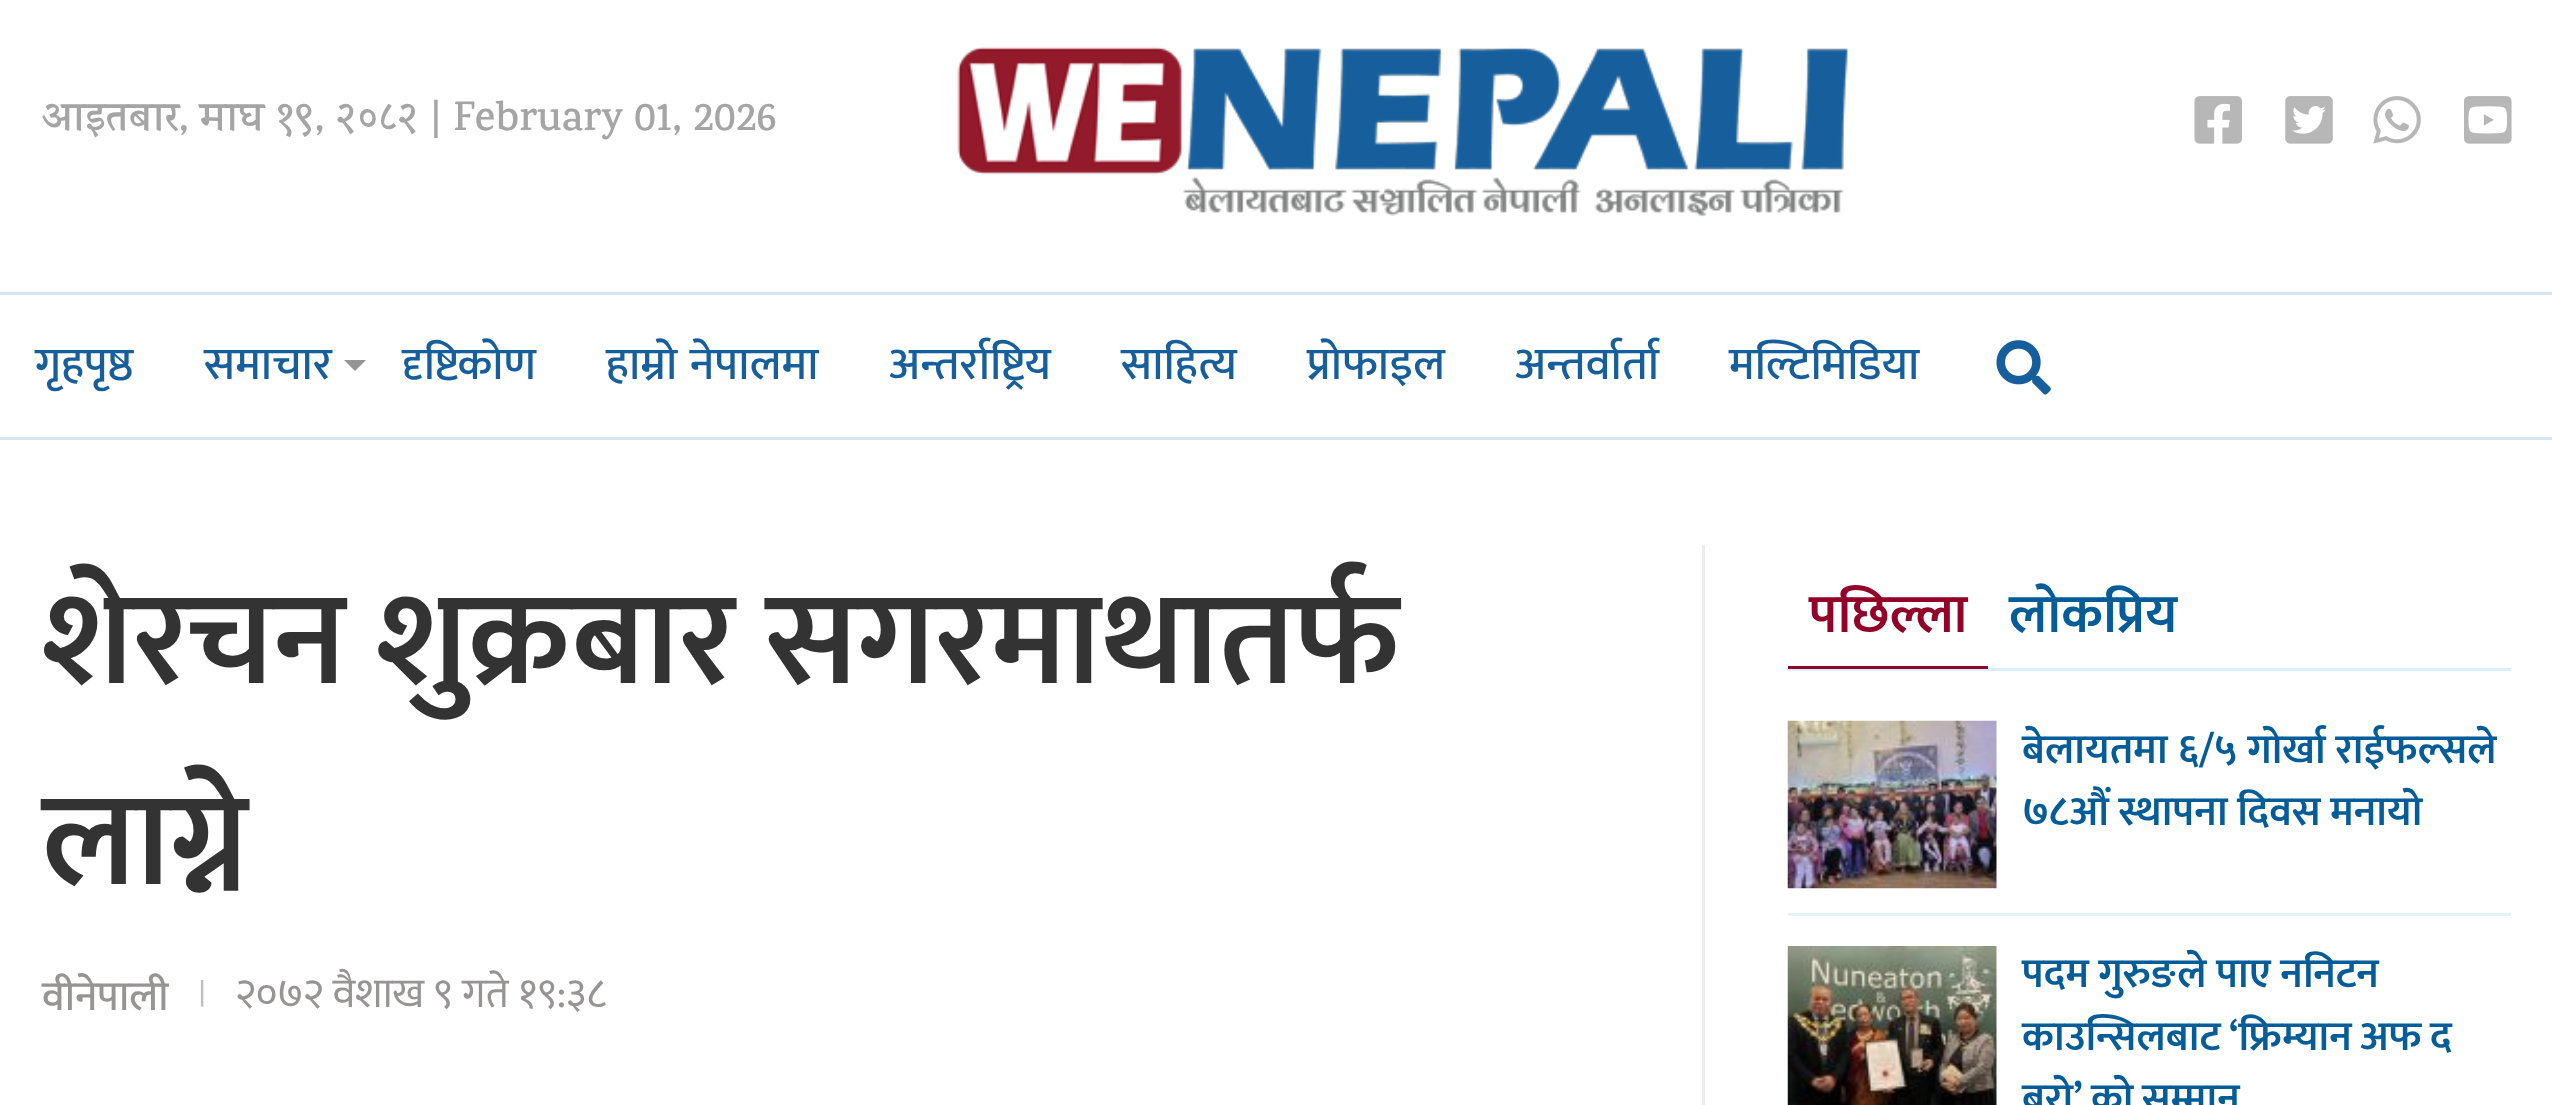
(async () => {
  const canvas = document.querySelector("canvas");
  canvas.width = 2552;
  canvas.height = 1105;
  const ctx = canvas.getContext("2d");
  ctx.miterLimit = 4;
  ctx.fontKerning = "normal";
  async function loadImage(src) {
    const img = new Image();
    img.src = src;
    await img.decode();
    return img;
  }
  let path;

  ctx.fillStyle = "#ffffff";
  ctx.fillRect(0, 0, 2552, 1105);
  ctx.drawImage(await loadImage("img/1.png"), 957, 46, 891, 171);
  ctx.drawImage(await loadImage("img/2.png"), 2194, 96, 48, 48);
  ctx.drawImage(await loadImage("img/3.png"), 2285, 96, 48, 48);
  ctx.drawImage(await loadImage("img/4.png"), 2373, 96, 48, 48);
  ctx.drawImage(await loadImage("img/5.png"), 2464, 96, 48, 48);
  ctx.fillStyle = "#d4e5f0";
  ctx.fillRect(0, 292, 2552, 3);
  ctx.fillRect(0, 437, 2552, 3);
  ctx.fillStyle = "#959595";
  path = new Path2D("M344 360H366L355 371Z");
  ctx.fill(path);
  ctx.drawImage(await loadImage("img/6.png"), 1996, 340, 55, 55);
  for (const [x, y, w, h, color] of [
    [1702, 545, 3, 560, "#ececec"],
    [1788, 668, 723, 3, "#d9f0ff"],
    [1788, 666, 200, 3, "#930228"],
    [1788, 913, 723, 3, "#e3f4ff"],
  ]) {
    ctx.fillStyle = color;
    ctx.fillRect(x, y, w, h);
  }
  ctx.drawImage(await loadImage("img/7.png"), 1787, 720, 210, 169);
  ctx.drawImage(await loadImage("img/8.png"), 1787, 946, 210, 159);
  ctx.font = "600 41.75px Karma";
  ctx.fillStyle = "#a5a5a5";
  ctx.fillText("आइतबार, माघ १९, २०८२", 42, 130);
  ctx.fillText("| February 01, 2026", 430, 130);
  ctx.font = "500 46px Mukta";
  ctx.fillStyle = "#165f9c";
  for (const [text, x, y] of [
    ["गृहपृष्ठ", 35, 379],
    ["समाचार", 204, 379],
    ["दृष्टिकोण", 402, 379],
  ]) {
    ctx.fillText(text, x, y);
  }
  ctx.wordSpacing = "2px";
  ctx.fillText("हाम्रो नेपालमा", 606, 379);
  ctx.wordSpacing = "0px";
  for (const [text, x, y] of [
    ["अन्तर्राष्ट्रिय", 889, 379],
    ["साहित्य", 1121, 379],
    ["प्रोफाइल", 1307, 379],
    ["अन्तर्वार्ता", 1515, 379],
    ["मल्टिमिडिया", 1729, 379],
  ]) {
    ctx.fillText(text, x, y);
  }
  ctx.font = "600 133.75px Mukta";
  ctx.fillStyle = "#333333";
  ctx.fillText("शेरचन शुक्रबार सगरमाथातर्फ", 42, 683);
  ctx.fillText("लाग्ने", 42, 884);
  ctx.font = "500 41.75px Mukta";
  ctx.fillStyle = "#979494";
  ctx.fillText("वीनेपाली", 42, 1010);
  ctx.font = "600 29px Karma";
  ctx.fillStyle = "#bfbfbf";
  ctx.fillText("|", 198, 1001);
  ctx.font = "41.75px Mukta";
  ctx.fillStyle = "#979494";
  ctx.fillText("२०७२ वैशाख ९ गते १९:३८", 235, 1007);
  ctx.font = "600 54.5px Mukta";
  ctx.fillStyle = "#930228";
  ctx.fillText("पछिल्ला", 1809, 632);
  ctx.fillStyle = "#045d98";
  ctx.fillText("लोकप्रिय", 2009, 632);
  ctx.font = "600 41.75px Mukta";
  for (const [text, x, y] of [
    ["बेलायतमा ६/५ गोर्खा राईफल्सले", 2022, 763],
    ["७८औं स्थापना दिवस मनायो", 2022, 825],
    ["पदम गुरुङले पाए ननिटन", 2022, 987],
  ]) {
    ctx.fillText(text, x, y);
  }
  ctx.wordSpacing = "-1px";
  ctx.fillText("काउन्सिलबाट ‘फ्रिम्यान अफ द", 2022, 1050);
  ctx.fillText("बरो’ को सम्मान", 2022, 1112);
})();
